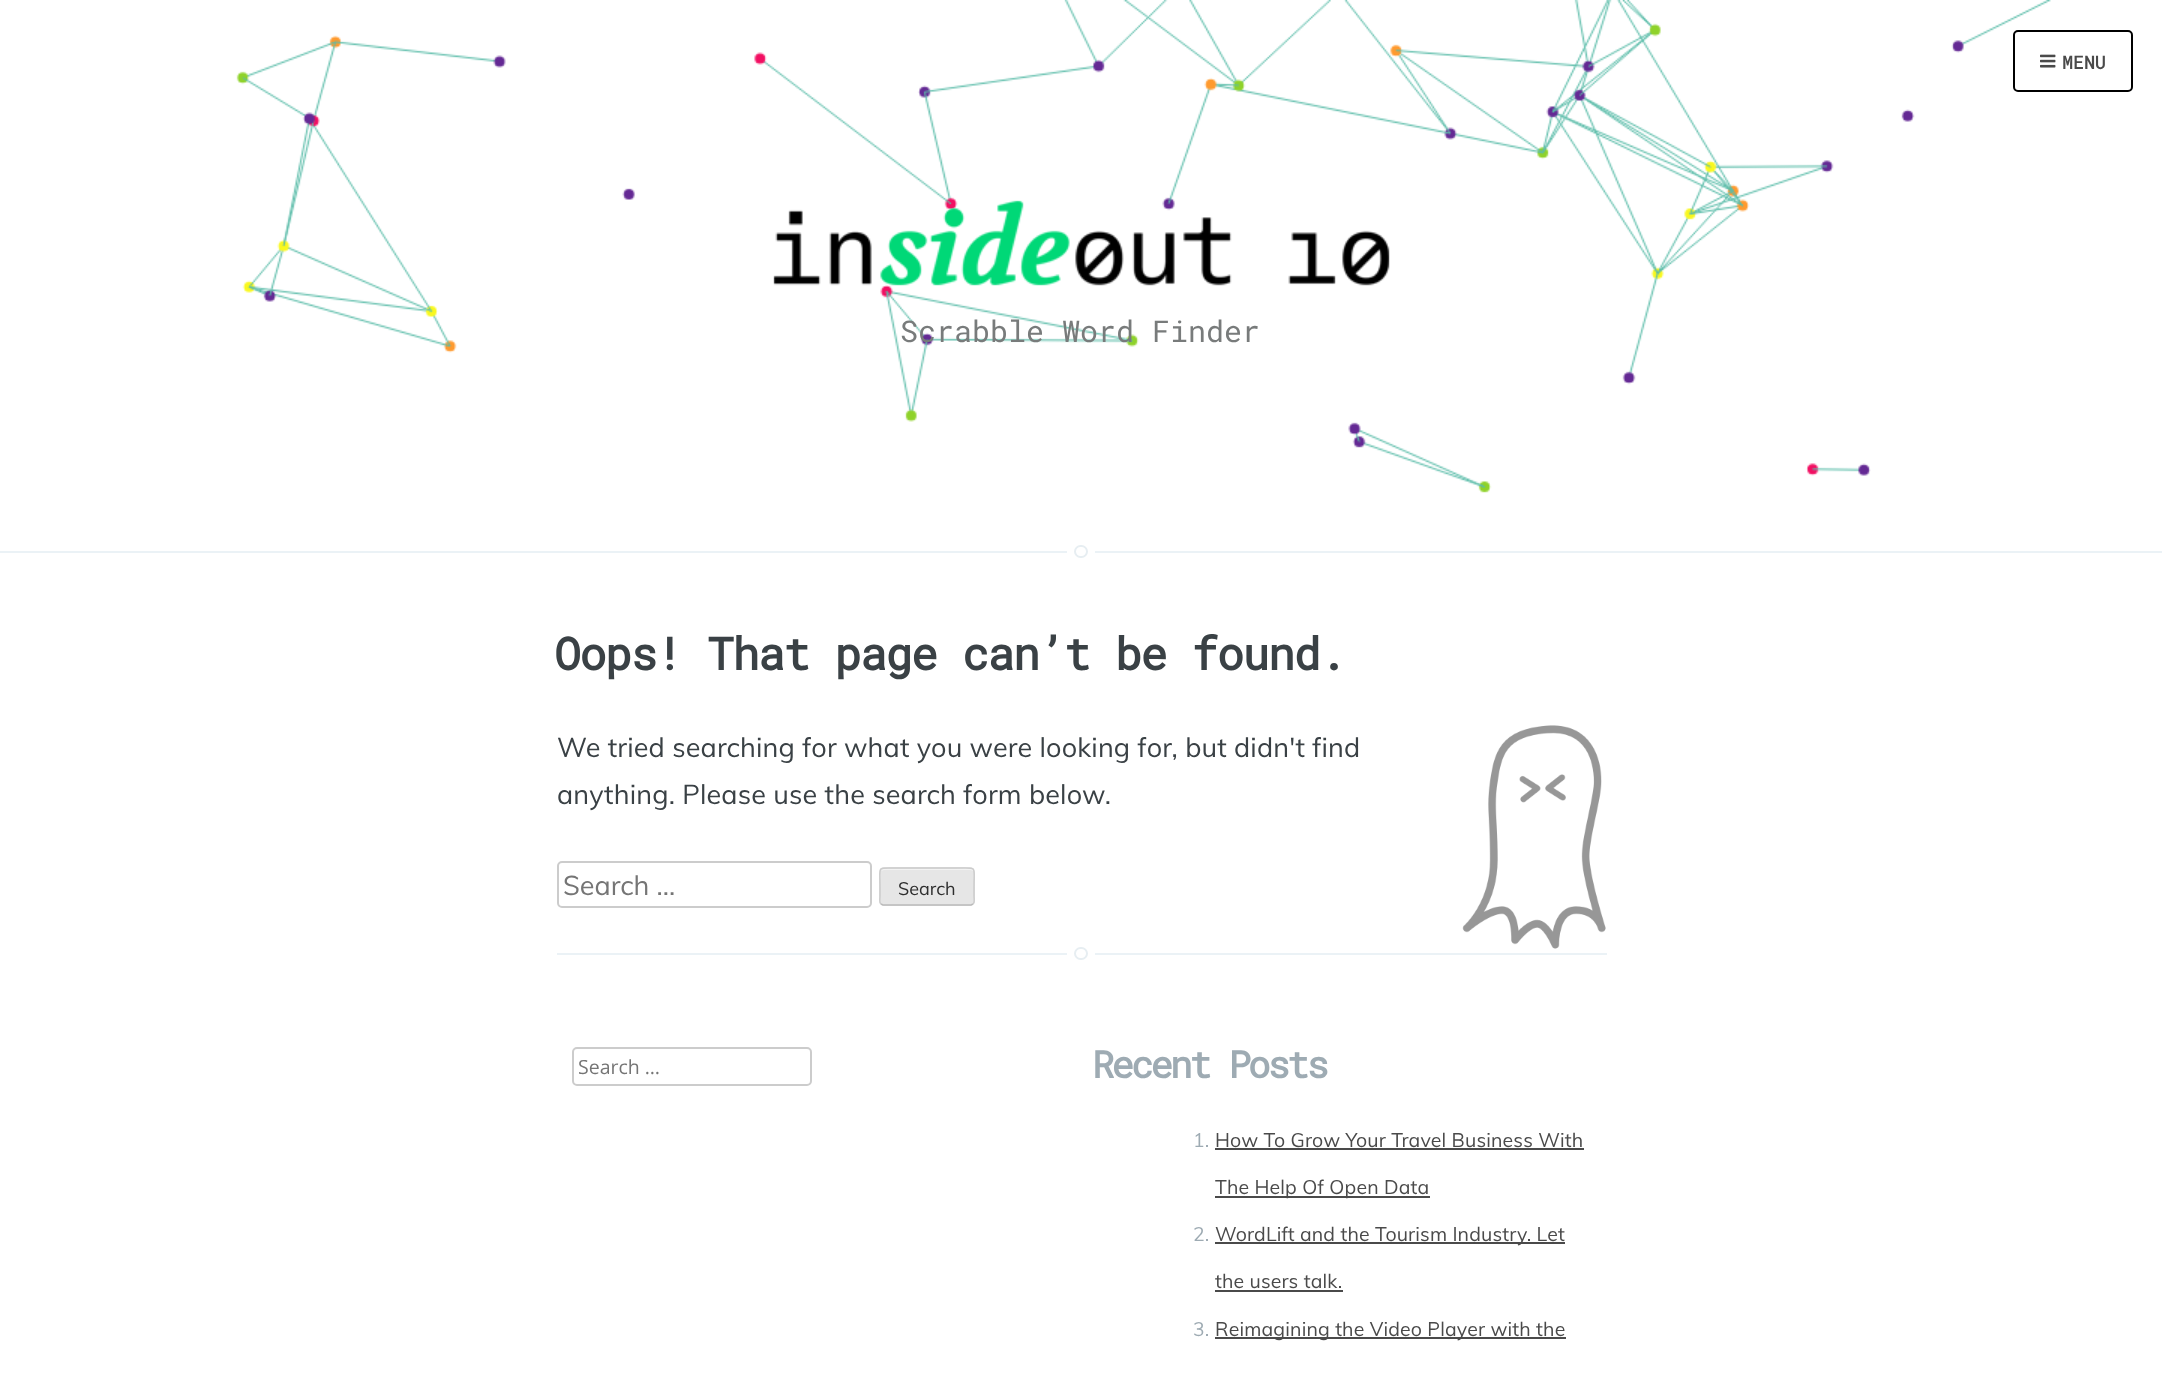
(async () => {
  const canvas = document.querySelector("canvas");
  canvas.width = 2162;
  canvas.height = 1375;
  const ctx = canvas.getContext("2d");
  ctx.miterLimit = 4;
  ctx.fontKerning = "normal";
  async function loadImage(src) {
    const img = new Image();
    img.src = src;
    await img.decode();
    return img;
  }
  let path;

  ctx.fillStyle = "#ffffff";
  ctx.fillRect(0, 0, 2162, 1375);
  ctx.fillStyle = "#ebf2f6";
  ctx.fillRect(0, 551, 2162, 2);
  ctx.drawImage(await loadImage("img/1.png"), 236, 0, 1815, 493);
  ctx.beginPath();
  ctx.roundRect(2014, 31, 118, 60, 4);
  ctx.strokeStyle = "#000000";
  ctx.lineWidth = 2;
  ctx.stroke();
  ctx.drawImage(await loadImage("img/2.png"), 2040, 54, 16, 14);
  ctx.drawImage(await loadImage("img/3.png"), 773, 200, 617, 86);
  ctx.beginPath();
  ctx.roundRect(1071, 541, 20, 21, 10);
  ctx.strokeStyle = "#ffffff";
  ctx.lineWidth = 8;
  ctx.stroke();
  ctx.fillStyle = "#ffffff";
  ctx.beginPath();
  ctx.roundRect(1075, 546, 12, 11, 5.5);
  ctx.fill();
  ctx.strokeStyle = "#e7eef2";
  ctx.lineWidth = 2;
  ctx.stroke();
  ctx.fillStyle = "#ebf2f6";
  ctx.fillRect(557, 953, 1050, 2);
  ctx.drawImage(await loadImage("img/4.png"), 1462, 725, 144, 224);
  ctx.beginPath();
  ctx.roundRect(558, 862, 313, 45, 4);
  ctx.strokeStyle = "#cccccc";
  ctx.stroke();
  ctx.fillStyle = "#e6e6e6";
  ctx.beginPath();
  ctx.roundRect(879, 867, 96, 39, 5);
  ctx.fill();
  ctx.fillStyle = "#f3f3f3";
  path = new Path2D("M884 870H970C972 870 974 871 974 873C974 865 960 869 956 869H883L881 871Z");
  ctx.fill(path);
  path = new Path2D("M973 904L971 905H883L881 904");
  ctx.strokeStyle = "#bbbbbb";
  ctx.lineWidth = 1.5;
  ctx.stroke(path);
  path = new Path2D("M881 904C879 902.5 880 898.5 880 896.5V886.5C880 865 876 868 898 868H956C978 868 974 865 974 886.5V896.5C974 898.5 975 902.5 973 904");
  ctx.strokeStyle = "#cccccc";
  ctx.stroke(path);
  ctx.beginPath();
  ctx.roundRect(1071, 943, 20, 21, 10);
  ctx.strokeStyle = "#ffffff";
  ctx.lineWidth = 8;
  ctx.stroke();
  ctx.fillStyle = "#ffffff";
  ctx.beginPath();
  ctx.roundRect(1075, 948, 12, 11, 5.5);
  ctx.fill();
  ctx.strokeStyle = "#e7eef2";
  ctx.lineWidth = 2;
  ctx.stroke();
  ctx.beginPath();
  ctx.roundRect(573, 1048, 238, 37, 4);
  ctx.strokeStyle = "#cccccc";
  ctx.stroke();
  for (const [x, y, w, h, color] of [
    [1215, 1148, 369, 2, "#4a4a4a"],
    [1215, 1196, 215, 2, "#4a4a4a"],
    [1215, 1242, 350, 2, "#4a4a4a"],
    [1215, 1290, 128, 2, "#4a4a4a"],
    [1215, 1337, 351, 2, "#4a4a4a"],
  ]) {
    ctx.fillStyle = color;
    ctx.fillRect(x, y, w, h);
  }
  ctx.letterSpacing = "0.15px";
  ctx.font = "bold 18px Roboto Mono";
  ctx.fillText("MENU", 2062, 69);
  ctx.letterSpacing = "0px";
  ctx.font = "30px Roboto Mono";
  ctx.fillStyle = "#787b7b";
  ctx.fillText("Scrabble Word Finder", 900, 342);
  ctx.letterSpacing = "-1.5px";
  ctx.font = "bold 45px Roboto Mono";
  ctx.fillStyle = "#3a4145";
  ctx.fillText("Oops! That page can’t be found.", 554, 670);
  ctx.letterSpacing = "0.15px";
  ctx.font = "27px Muli";
  ctx.fillText("We tried searching for what you were looking for, but didn't find", 557, 757);
  ctx.fillText("anything. Please use the search form below.", 557, 804);
  ctx.letterSpacing = "0px";
  ctx.fillStyle = "#757575";
  ctx.fillText("Search …", 563, 895);
  ctx.font = "18px Muli";
  ctx.fillStyle = "#2e2e2e";
  ctx.fillText("Search", 898, 895);
  ctx.font = "19.5px Open Sans";
  ctx.fillStyle = "#757575";
  ctx.fillText("Search …", 578, 1074);
  ctx.letterSpacing = "-3px";
  ctx.font = "bold 37.5px Roboto Mono";
  ctx.fillStyle = "#9eabb3";
  ctx.fillText("Recent Posts", 1092, 1078);
  ctx.letterSpacing = "0.15px";
  ctx.font = "19.5px Muli";
  ctx.fillText("1.", 1193, 1147);
  ctx.fillStyle = "#4a4a4a";
  ctx.fillText("How To Grow Your Travel Business With", 1215, 1147);
  ctx.fillText("The Help Of Open Data", 1215, 1194);
  ctx.fillStyle = "#9eabb3";
  ctx.fillText("2.", 1193, 1241);
  ctx.fillStyle = "#4a4a4a";
  ctx.fillText("WordLift and the Tourism Industry. Let", 1215, 1241);
  ctx.fillText("the users talk.", 1215, 1288);
  ctx.fillStyle = "#9eabb3";
  ctx.fillText("3.", 1193, 1336);
  ctx.fillStyle = "#4a4a4a";
  ctx.fillText("Reimagining the Video Player with the", 1215, 1336);
})();
